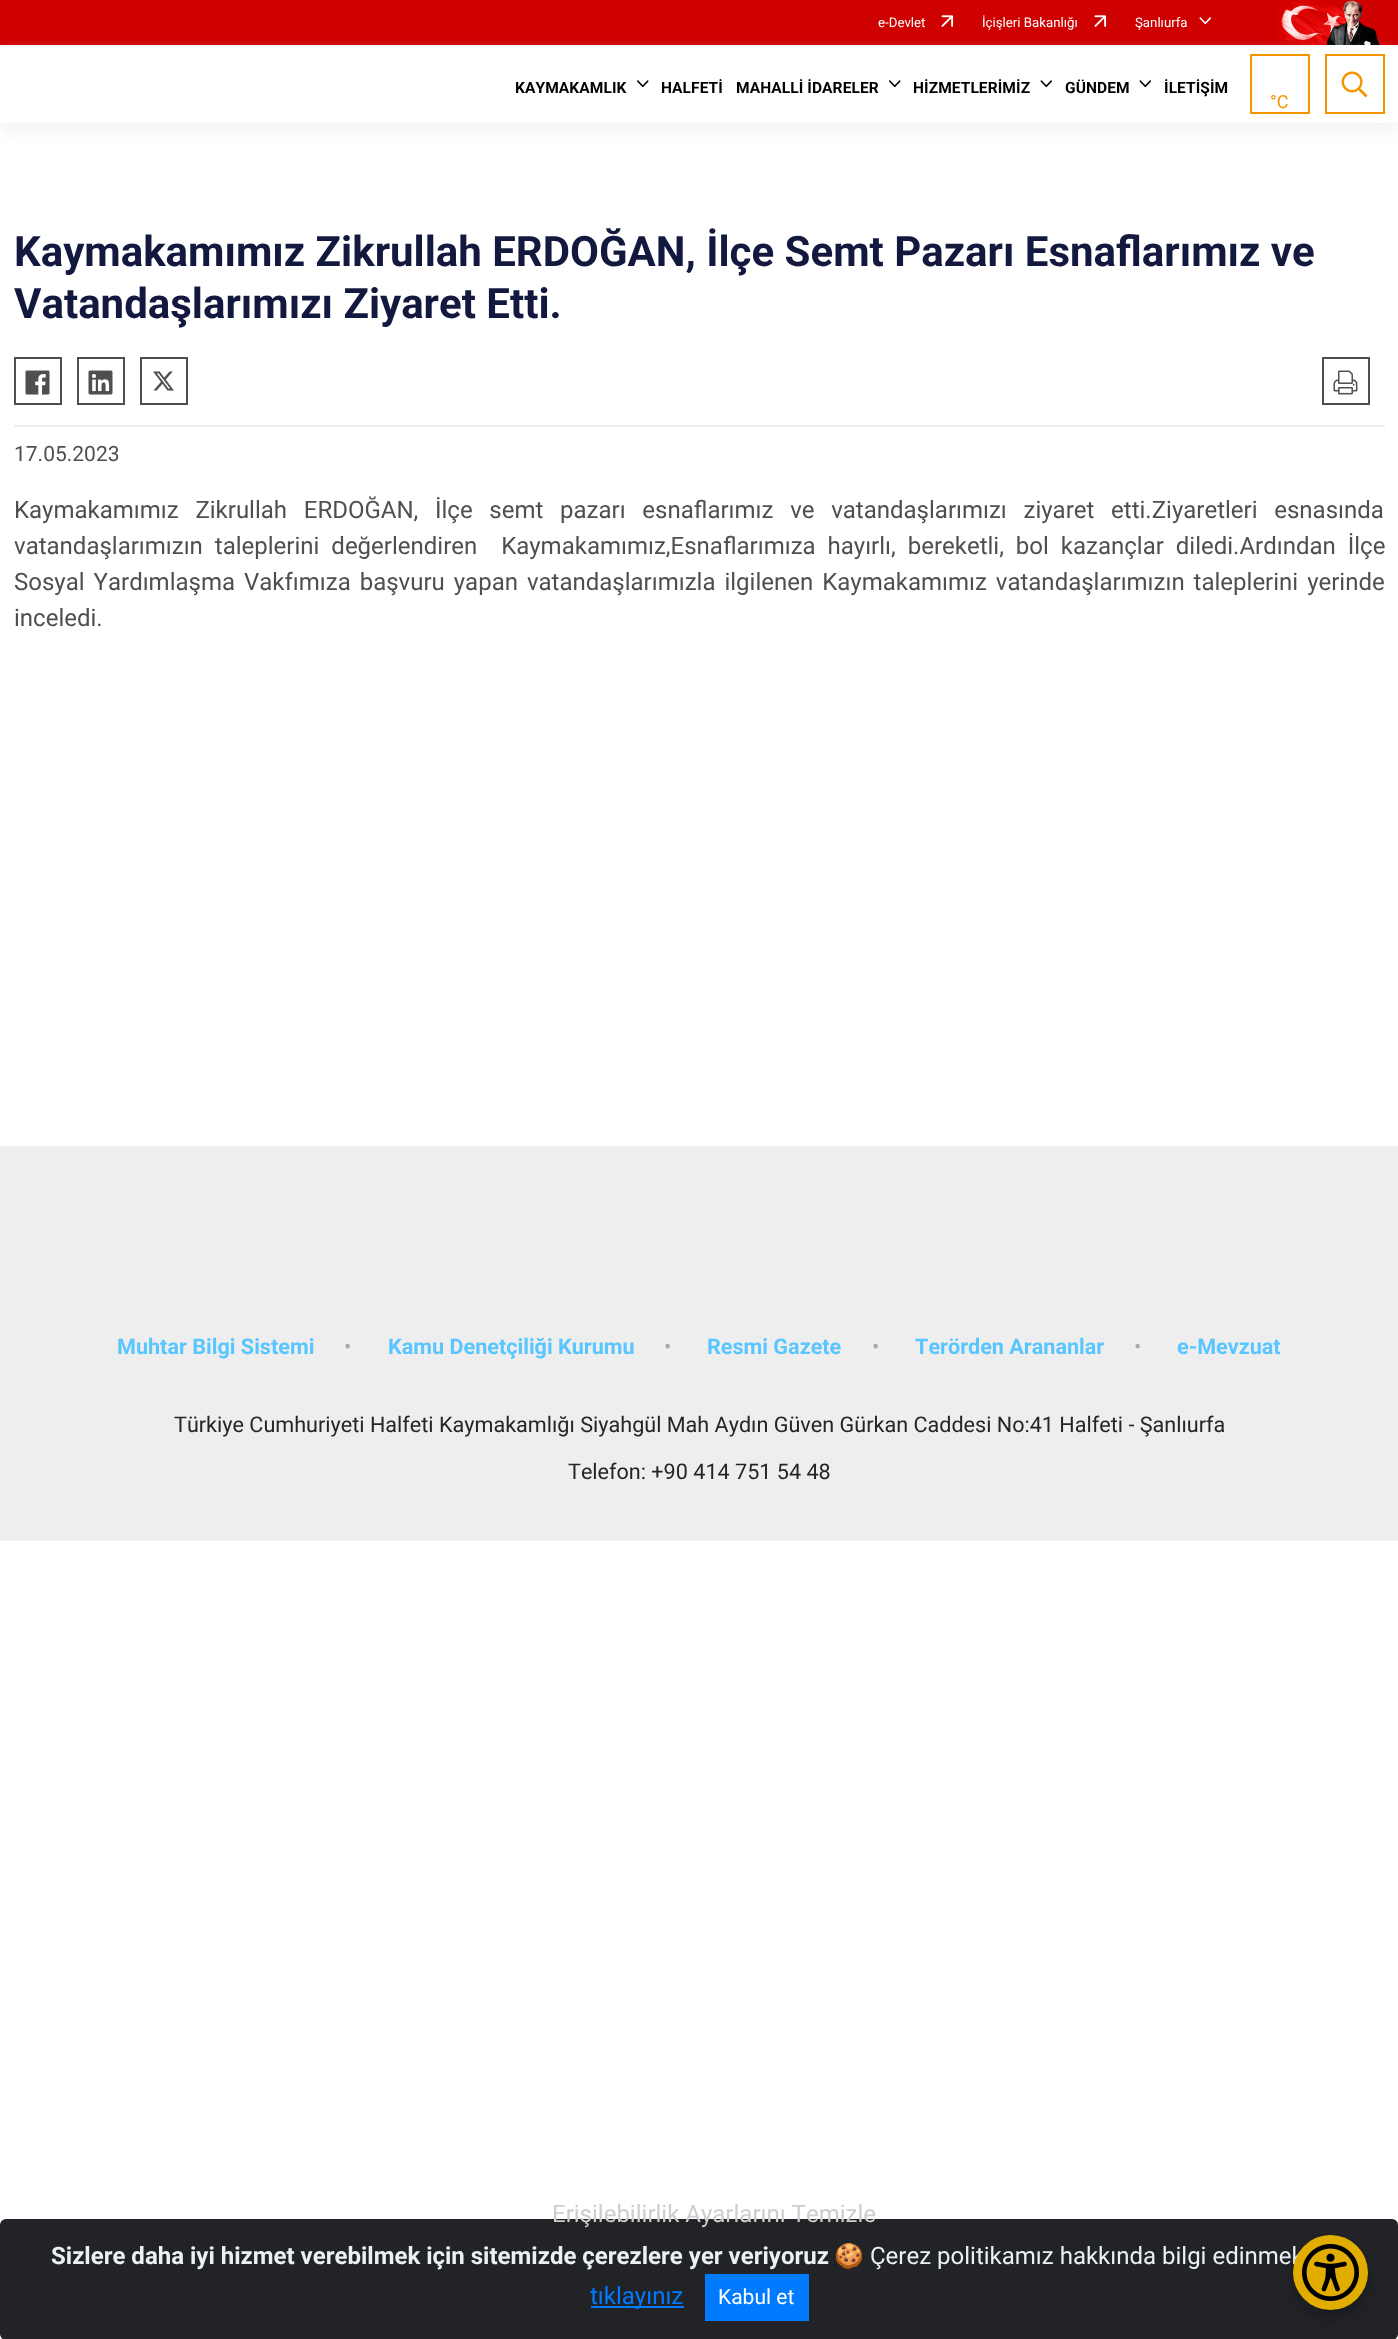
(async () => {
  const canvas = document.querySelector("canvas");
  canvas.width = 1398;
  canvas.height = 2339;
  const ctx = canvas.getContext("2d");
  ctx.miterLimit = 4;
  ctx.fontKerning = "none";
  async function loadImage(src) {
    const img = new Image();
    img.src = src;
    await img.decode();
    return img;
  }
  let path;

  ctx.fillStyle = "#ffffff";
  ctx.fillRect(0, 0, 1398, 2339);
  ctx.fillStyle = "#ce0000";
  ctx.fillRect(0, 0, 1398, 45);
  ctx.drawImage(await loadImage("img/1.png"), 941, 15, 13, 12);
  ctx.drawImage(await loadImage("img/1.png"), 1094, 15, 13, 12);
  ctx.drawImage(await loadImage("img/2.png"), 1199, 17, 12, 8);
  ctx.drawImage(await loadImage("img/3.png"), 1276, 0, 104, 45);
  ctx.save();
  path = new Path2D("M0 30H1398V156H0ZM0 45H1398V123H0Z");
  ctx.clip(path, "evenodd");
  ctx.fillStyle = "rgba(238, 238, 238, 0.62)";
  ctx.filter = "blur(7.5px)";
  ctx.beginPath();
  ctx.rect(0, 54, 1398, 78);
  ctx.fill();
  ctx.filter = "none";
  ctx.restore();
  ctx.drawImage(await loadImage("img/4.png"), 637, 80, 12, 8);
  ctx.drawImage(await loadImage("img/4.png"), 889, 80, 12, 8);
  ctx.drawImage(await loadImage("img/5.png"), 1040, 80, 12, 8);
  ctx.drawImage(await loadImage("img/5.png"), 1139, 80, 12, 8);
  ctx.strokeStyle = "#f59300";
  ctx.lineWidth = 2;
  ctx.strokeRect(1251, 55, 58, 58);
  ctx.strokeRect(1326, 55, 58, 58);
  ctx.drawImage(await loadImage("img/6.png"), 1341, 71, 27, 27);
  ctx.fillStyle = "#eeeeee";
  ctx.fillRect(14, 425, 1371, 2);
  ctx.strokeStyle = "#4f4f4f";
  ctx.strokeRect(15, 358, 46, 46);
  ctx.drawImage(await loadImage("img/7.png"), 25, 370, 25, 25);
  ctx.strokeRect(78, 358, 46, 46);
  ctx.drawImage(await loadImage("img/8.png"), 88, 370, 25, 25);
  ctx.strokeRect(141, 358, 46, 46);
  ctx.drawImage(await loadImage("img/9.png"), 153, 371, 21, 20);
  ctx.strokeRect(1323, 358, 46, 46);
  ctx.drawImage(await loadImage("img/10.png"), 1333, 370, 25, 25);
  ctx.fillRect(0, 1146, 1398, 395);
  ctx.fillStyle = "#212327";
  ctx.beginPath();
  ctx.roundRect(0, 2219, 1398, 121, 6);
  ctx.fill();
  ctx.fillStyle = "rgba(0, 0, 0, 0.2)";
  ctx.filter = "blur(6px)";
  ctx.beginPath();
  ctx.roundRect(1293, 2244, 75, 75, 37.5);
  ctx.fill();
  ctx.filter = "none";
  ctx.fillStyle = "#007bff";
  ctx.fillRect(591, 2306, 93, 2);
  ctx.fillRect(705, 2274, 104, 47);
  ctx.font = "13.25px Roboto";
  ctx.fillStyle = "#ffffff";
  for (const [text, x, y] of [
    ["e-Devlet", 878, 27],
    ["İçişleri Bakanlığı", 982, 27],
    ["Şanlıurfa", 1135, 27],
  ]) {
    ctx.fillText(text, x, y);
  }
  ctx.letterSpacing = "0.1px";
  ctx.font = "bold 15.5px Roboto";
  ctx.fillStyle = "#000000";
  for (const [text, x, y] of [
    ["KAYMAKAMLIK", 515, 93],
    ["HALFETİ", 661, 93],
    ["MAHALLİ İDARELER", 736, 93],
    ["HİZMETLERİMİZ", 913, 93],
    ["GÜNDEM", 1065, 93],
    ["İLETİŞİM", 1164, 93],
  ]) {
    ctx.fillText(text, x, y);
  }
  ctx.letterSpacing = "0px";
  ctx.font = "18px Roboto";
  ctx.fillStyle = "#f59300";
  ctx.fillText("°C", 1270, 108);
  ctx.font = "bold 42px Roboto";
  ctx.fillStyle = "#13183e";
  ctx.fillText("Kaymakamımız Zikrullah ERDOĞAN, İlçe Semt Pazarı Esnaflarımız ve", 14, 266);
  ctx.fillText("Vatandaşlarımızı Ziyaret Etti.", 14, 318);
  ctx.font = "21px Roboto";
  ctx.fillStyle = "#4f4f4f";
  ctx.fillText("17.05.2023", 14, 461);
  ctx.wordSpacing = "10.75px";
  ctx.font = "24px Roboto";
  ctx.fillText("Kaymakamımız Zikrullah ERDOĞAN, İlçe semt pazarı esnaflarımız ve vatandaşlarımızı ziyaret etti.Ziyaretleri esnasında", 14, 518);
  ctx.wordSpacing = "6px";
  ctx.fillText("vatandaşlarımızın taleplerini değerlendiren  Kaymakamımız,Esnaflarımıza hayırlı, bereketli, bol kazançlar diledi.Ardından İlçe", 14, 554);
  ctx.wordSpacing = "3px";
  ctx.fillText("Sosyal Yardımlaşma Vakfımıza başvuru yapan vatandaşlarımızla ilgilenen Kaymakamımız vatandaşlarımızın taleplerini yerinde", 14, 590);
  ctx.wordSpacing = "0px";
  ctx.fillText("inceledi.", 14, 626);
  ctx.font = "bold 21.6px Roboto";
  ctx.fillStyle = "#59c6ff";
  ctx.fillText("Muhtar Bilgi Sistemi", 117, 1354);
  ctx.font = "21.6px Roboto";
  ctx.fillStyle = "#aaaaaa";
  ctx.fillText("•", 344, 1354);
  ctx.font = "bold 21.6px Roboto";
  ctx.fillStyle = "#59c6ff";
  ctx.fillText("Kamu Denetçiliği Kurumu", 388, 1354);
  ctx.font = "21.6px Roboto";
  ctx.fillStyle = "#aaaaaa";
  ctx.fillText("•", 664, 1354);
  ctx.font = "bold 21.6px Roboto";
  ctx.fillStyle = "#59c6ff";
  ctx.fillText("Resmi Gazete", 707, 1354);
  ctx.font = "21.6px Roboto";
  ctx.fillStyle = "#aaaaaa";
  ctx.fillText("•", 872, 1354);
  ctx.font = "bold 21.6px Roboto";
  ctx.fillStyle = "#59c6ff";
  ctx.fillText("Terörden Arananlar", 915, 1354);
  ctx.font = "21.6px Roboto";
  ctx.fillStyle = "#aaaaaa";
  ctx.fillText("•", 1134, 1354);
  ctx.font = "bold 21.6px Roboto";
  ctx.fillStyle = "#59c6ff";
  ctx.fillText("e-Mevzuat", 1177, 1354);
  ctx.font = "21.6px Roboto";
  ctx.fillStyle = "#252525";
  ctx.fillText("Türkiye Cumhuriyeti Halfeti Kaymakamlığı Siyahgül Mah Aydın Güven Gürkan Caddesi No:41 Halfeti - Şanlıurfa", 174, 1432);
  ctx.fillText("Telefon: +90 414 751 54 48", 568, 1479);
  ctx.font = "24px Roboto";
  ctx.fillStyle = "#cdcdce";
  ctx.fillText("Erişilebilirlik Ayarlarını Temizle", 552, 2222);
  ctx.font = "bold 24px Roboto";
  ctx.fillStyle = "#ecf0f1";
  ctx.fillText("Sizlere daha iyi hizmet verebilmek için sitemizde çerezlere yer veriyoruz", 51, 2264);
  ctx.font = "24px Noto Color Emoji";
  ctx.fillText("🍪", 834, 2264);
  ctx.font = "24px Roboto";
  ctx.fillText("Çerez politikamız hakkında bilgi edinmek", 870, 2264);
  ctx.fillStyle = "#e1ad01";
  ctx.beginPath();
  ctx.arc(1330.5, 2272.5, 37.5, 0, Math.PI * 2);
  ctx.fill();
  ctx.drawImage(await loadImage("img/11.png"), 1302, 2244, 57, 57);
  ctx.fillStyle = "#007bff";
  ctx.fillText("tıklayınız", 590, 2304);
  ctx.font = "21px Roboto";
  ctx.fillStyle = "#ffffff";
  ctx.fillText("Kabul et", 718, 2304);
})();
